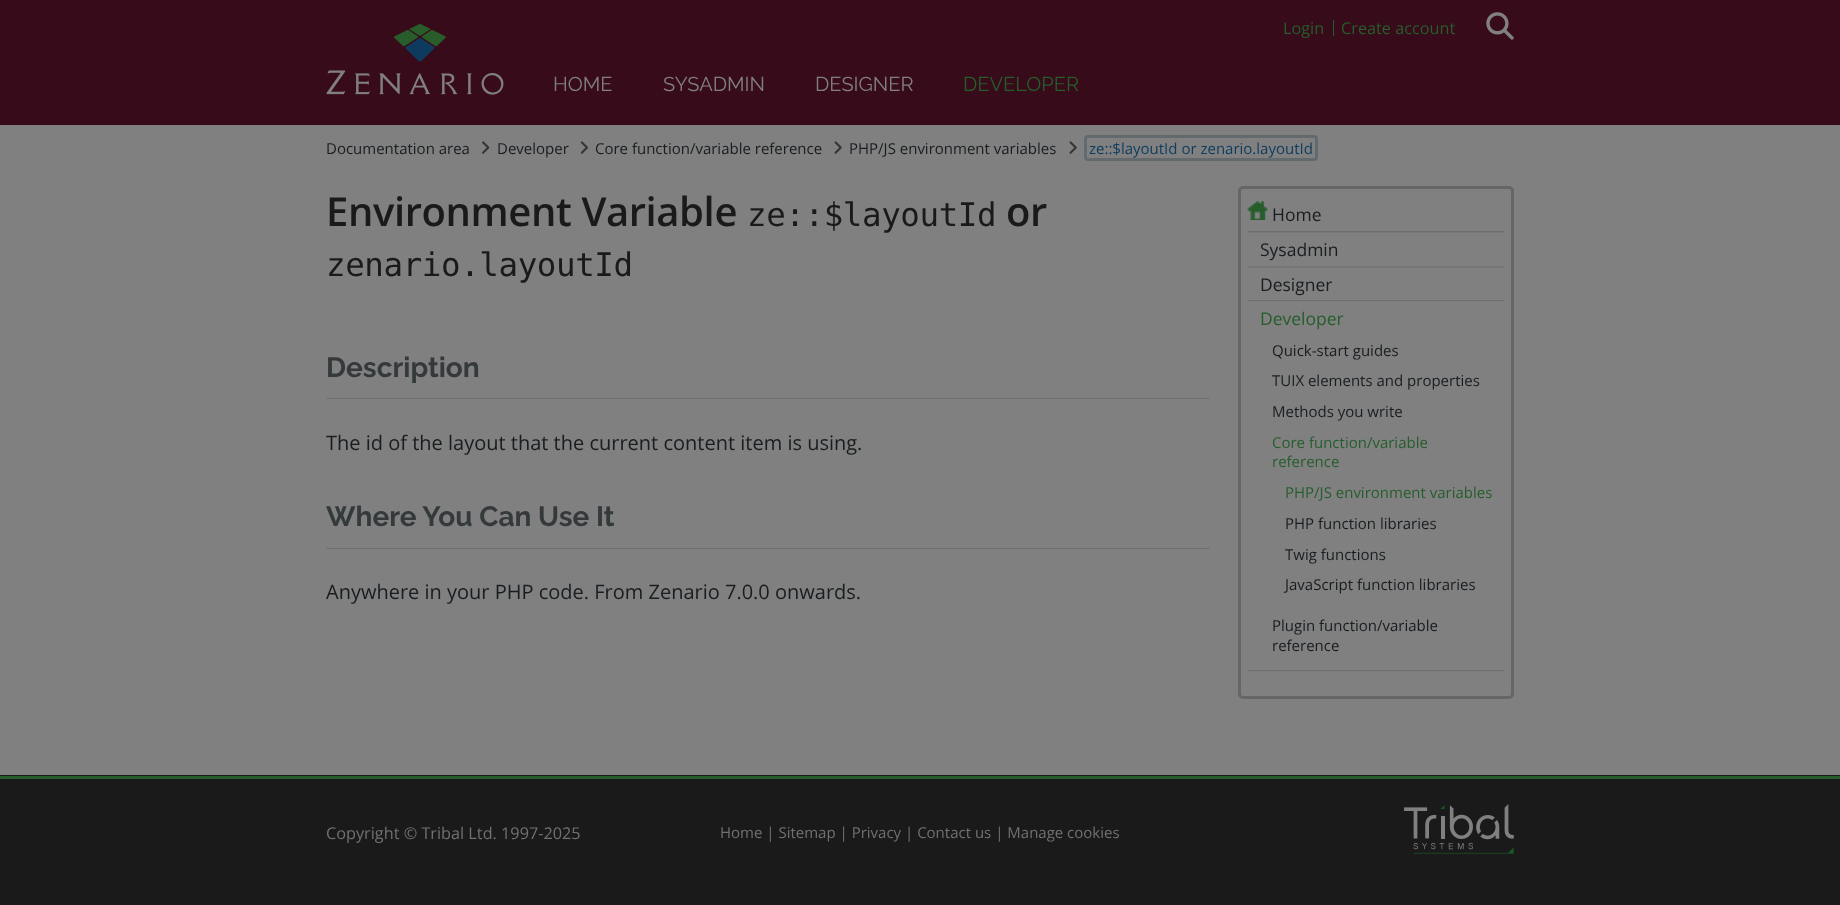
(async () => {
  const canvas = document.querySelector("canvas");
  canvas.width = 1840;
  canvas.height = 905;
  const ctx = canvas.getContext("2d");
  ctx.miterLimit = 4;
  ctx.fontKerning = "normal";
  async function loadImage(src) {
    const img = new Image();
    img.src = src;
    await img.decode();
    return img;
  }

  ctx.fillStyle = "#1a1a1a";
  ctx.fillRect(0, 0, 1840, 905);
  ctx.fillStyle = "#370b19";
  ctx.fillRect(0, 0, 1840, 125);
  ctx.drawImage(await loadImage("img/1.png"), 326, 24, 178, 71);
  ctx.fillStyle = "#265d2c";
  ctx.fillRect(1333, 20, 1, 16);
  ctx.drawImage(await loadImage("img/2.png"), 1486, 12, 28, 28);
  ctx.fillStyle = "#808080";
  ctx.fillRect(0, 125, 1840, 650);
  ctx.drawImage(await loadImage("img/3.png"), 482, 141, 8, 13);
  ctx.drawImage(await loadImage("img/4.png"), 580, 141, 8, 13);
  ctx.drawImage(await loadImage("img/5.png"), 834, 141, 8, 13);
  ctx.drawImage(await loadImage("img/5.png"), 1069, 141, 8, 13);
  ctx.beginPath();
  ctx.roundRect(1085.5, 136.5, 231, 23, 2.5);
  ctx.strokeStyle = "#626a6e";
  ctx.lineWidth = 3;
  ctx.stroke();
  ctx.fillStyle = "#707070";
  ctx.fillRect(326, 398, 884, 1);
  ctx.fillRect(326, 548, 884, 1);
  ctx.beginPath();
  ctx.roundRect(1239.5, 187.5, 273, 510, 3.5);
  ctx.strokeStyle = "#666666";
  ctx.stroke();
  ctx.drawImage(await loadImage("img/6.png"), 1247, 231, 257, 2);
  ctx.drawImage(await loadImage("img/7.png"), 1247, 201, 21, 19);
  ctx.fillStyle = "#6e6e6e";
  ctx.fillRect(1248, 231, 256, 1);
  ctx.drawImage(await loadImage("img/6.png"), 1247, 266, 257, 2);
  ctx.drawImage(await loadImage("img/8.png"), 1247, 300, 257, 2);
  ctx.drawImage(await loadImage("img/8.png"), 1247, 670, 257, 2);
  ctx.fillStyle = "#265d2c";
  ctx.fillRect(0, 776, 1840, 3);
  ctx.drawImage(await loadImage("img/9.png"), 1404, 804, 110, 50);
  ctx.font = "16.25px Open Sans";
  ctx.fillText("Login", 1283, 34);
  ctx.fillText("Create account", 1341, 34);
  ctx.font = "20px Raleway";
  ctx.fillStyle = "#808080";
  for (const [text, x, y] of [
    ["HOME", 553, 91],
    ["SYSADMIN", 663, 91],
    ["DESIGNER", 815, 91],
  ]) {
    ctx.fillText(text, x, y);
  }
  ctx.fillStyle = "#265d2c";
  ctx.fillText("DEVELOPER", 963, 91);
  ctx.font = "15px Open Sans";
  ctx.fillStyle = "#191d20";
  for (const [text, x, y] of [
    ["Documentation area", 326, 154],
    ["Developer", 497, 154],
    ["Core function/variable reference", 595, 154],
    ["PHP/JS environment variables", 849, 154],
  ]) {
    ctx.fillText(text, x, y);
  }
  ctx.fillStyle = "#0d3c5d";
  ctx.fillText("ze::$layoutId or zenario.layoutId", 1089, 154);
  ctx.letterSpacing = "-0.4px";
  ctx.font = "600 40px Open Sans";
  ctx.fillStyle = "#1a1a1a";
  ctx.fillText("Environment Variable", 326, 226);
  ctx.font = "32.5px DejaVu Sans Mono";
  ctx.fillText("ze::$layoutId", 747, 226);
  ctx.font = "600 40px Open Sans";
  ctx.fillText("or", 1006, 226);
  ctx.font = "32.5px DejaVu Sans Mono";
  ctx.fillText("zenario.layoutId", 326, 276);
  ctx.letterSpacing = "0px";
  ctx.font = "bold 28px Raleway";
  ctx.fillStyle = "#34393c";
  ctx.fillText("Description", 326, 377);
  ctx.font = "20px Open Sans";
  ctx.fillStyle = "#191d20";
  ctx.fillText("The id of the layout that the current content item is using.", 326, 450);
  ctx.font = "bold 28px Raleway";
  ctx.fillStyle = "#34393c";
  ctx.fillText("Where You Can Use It", 326, 526);
  ctx.font = "20px Open Sans";
  ctx.fillStyle = "#191d20";
  ctx.fillText("Anywhere in your PHP code. From Zenario 7.0.0 onwards.", 326, 599);
  ctx.font = "17.5px Open Sans";
  for (const [text, x, y] of [
    ["Home", 1272, 221],
    ["Sysadmin", 1260, 256],
    ["Designer", 1260, 291],
  ]) {
    ctx.fillText(text, x, y);
  }
  ctx.fillStyle = "#265d2c";
  ctx.fillText("Developer", 1260, 325);
  ctx.font = "15px Open Sans";
  ctx.fillStyle = "#191d20";
  for (const [text, x, y] of [
    ["Quick-start guides", 1272, 356],
    ["TUIX elements and properties", 1272, 386],
    ["Methods you write", 1272, 417],
  ]) {
    ctx.fillText(text, x, y);
  }
  ctx.fillStyle = "#265d2c";
  for (const [text, x, y] of [
    ["Core function/variable", 1272, 448],
    ["reference", 1272, 467],
    ["PHP/JS environment variables", 1285, 498],
  ]) {
    ctx.fillText(text, x, y);
  }
  ctx.fillStyle = "#191d20";
  for (const [text, x, y] of [
    ["PHP function libraries", 1285, 529],
    ["Twig functions", 1285, 560],
    ["JavaScript function libraries", 1285, 590],
    ["Plugin function/variable", 1272, 631],
    ["reference", 1272, 651],
  ]) {
    ctx.fillText(text, x, y);
  }
  ctx.font = "16.25px Open Sans";
  ctx.fillStyle = "#717171";
  ctx.fillText("Copyright © Tribal Ltd. 1997-2025", 326, 839);
  ctx.font = "15px Open Sans";
  ctx.fillText("Home | Sitemap | Privacy | Contact us | Manage cookies", 720, 838);
})();
